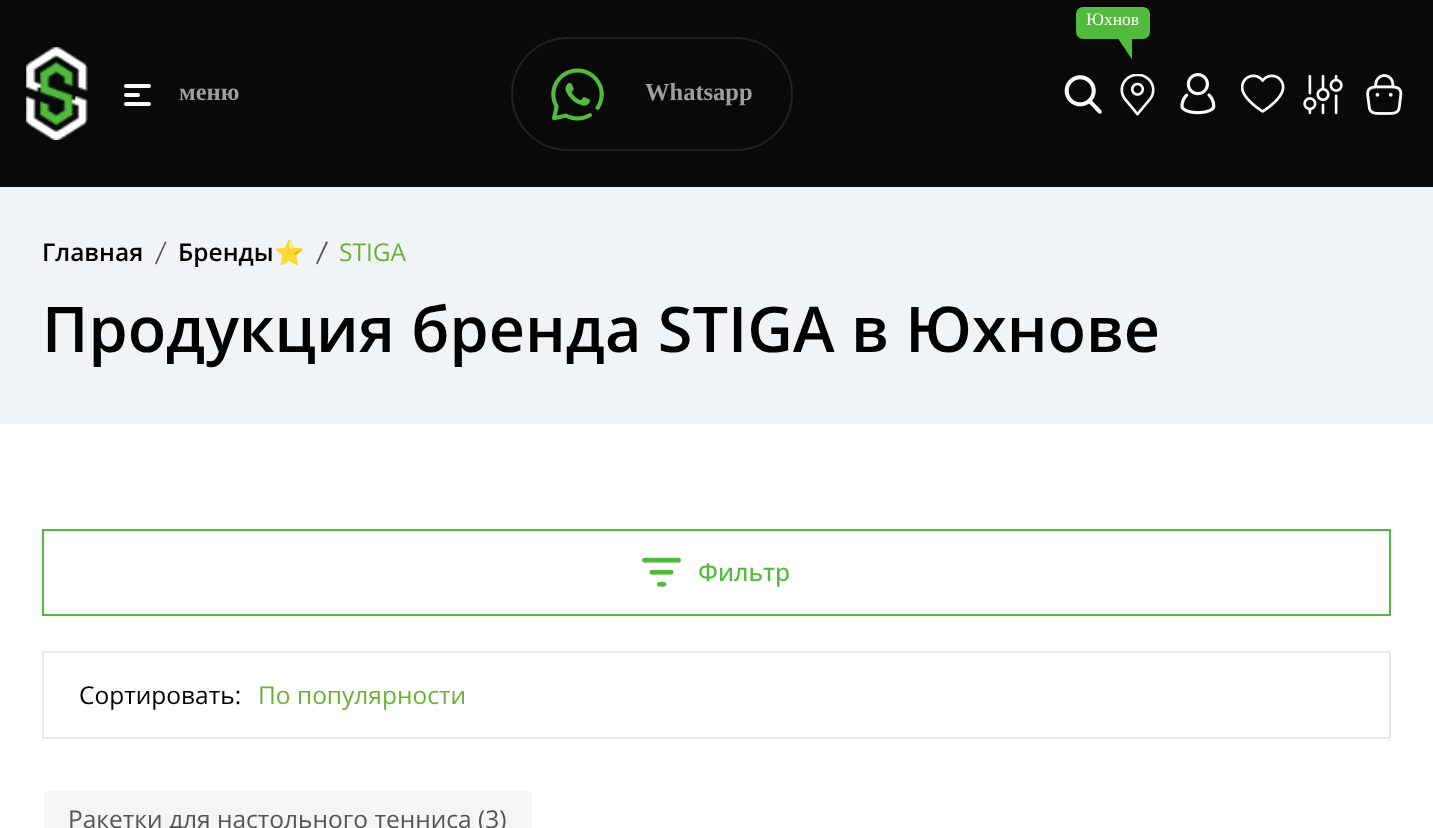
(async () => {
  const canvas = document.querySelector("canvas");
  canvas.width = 1433;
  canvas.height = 828;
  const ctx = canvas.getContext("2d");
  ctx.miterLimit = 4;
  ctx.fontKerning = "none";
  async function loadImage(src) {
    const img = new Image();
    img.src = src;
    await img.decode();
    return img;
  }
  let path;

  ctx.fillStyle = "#ffffff";
  ctx.fillRect(0, 0, 1433, 828);
  ctx.fillStyle = "#090909";
  ctx.fillRect(0, 0, 1433, 187);
  ctx.fillStyle = "#52ba3d";
  ctx.beginPath();
  ctx.roundRect(1076, 7, 74, 32, 7);
  ctx.fill();
  path = new Path2D("M1118 38.5H1132V59.5Z");
  ctx.fill(path);
  ctx.drawImage(await loadImage("img/1.png"), 1120, 74, 35, 42);
  ctx.drawImage(await loadImage("img/2.png"), 1064, 75, 38, 39);
  ctx.drawImage(await loadImage("img/3.png"), 1180, 73, 36, 42);
  ctx.drawImage(await loadImage("img/4.png"), 1241, 74, 44, 39);
  ctx.drawImage(await loadImage("img/5.png"), 1303, 74, 40, 41);
  ctx.drawImage(await loadImage("img/6.png"), 1366, 74, 37, 41);
  ctx.drawImage(await loadImage("img/7.png"), 26, 47, 62, 93);
  ctx.fillStyle = "#fbfbfb";
  ctx.beginPath();
  ctx.roundRect(124, 84, 27, 4, 2);
  ctx.fill();
  ctx.beginPath();
  ctx.roundRect(124, 93, 16, 4, 2);
  ctx.fill();
  ctx.beginPath();
  ctx.roundRect(124, 102, 27, 4, 2);
  ctx.fill();
  ctx.beginPath();
  ctx.roundRect(512, 38, 280, 112, 56);
  ctx.strokeStyle = "#222222";
  ctx.lineWidth = 2;
  ctx.stroke();
  ctx.drawImage(await loadImage("img/8.png"), 551, 68, 53, 53);
  ctx.fillStyle = "#f0f4f6";
  ctx.fillRect(0, 187, 1433, 237);
  ctx.fillStyle = "#5b5858";
  path = new Path2D("M166.5 242L156.5 264.5L155 263.5L165 241.5Z");
  ctx.fill(path);
  path = new Path2D("M328 242L317.5 264.5L316 263.5L326 241.5Z");
  ctx.fill(path);
  ctx.strokeStyle = "#52ba3d";
  ctx.strokeRect(43, 530, 1347, 85);
  ctx.drawImage(await loadImage("img/9.png"), 642, 557, 39, 30);
  ctx.strokeStyle = "#e9e9e9";
  ctx.strokeRect(43, 652, 1347, 86);
  ctx.fillStyle = "#f5f5f5";
  ctx.beginPath();
  ctx.roundRect(44, 791, 488, 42, 5);
  ctx.fill();
  ctx.font = "17.5px Liberation Serif";
  ctx.fillStyle = "#ffffff";
  ctx.fillText("Юхнов", 1086, 25);
  ctx.font = "bold 24.5px Liberation Serif";
  ctx.fillStyle = "#9e9e9e";
  ctx.fillText("меню", 179, 100);
  ctx.fillText("Whatsapp", 645, 100);
  ctx.font = "600 24.5px Open Sans";
  ctx.fillStyle = "#000000";
  ctx.fillText("Главная", 42, 261);
  ctx.fillText("Бренды", 178, 261);
  ctx.font = "bold 24.5px Noto Color Emoji";
  ctx.fillText("⭐", 274, 261);
  ctx.font = "24.5px Open Sans";
  ctx.fillStyle = "#6db038";
  ctx.fillText("STIGA", 339, 261);
  ctx.font = "600 63px Open Sans";
  ctx.fillStyle = "#000000";
  ctx.fillText("Продукция бренда STIGA в Юхнове", 42, 352);
  ctx.font = "500 24.5px Open Sans";
  ctx.fillStyle = "#52ba3d";
  ctx.fillText("Фильтр", 698, 581);
  ctx.font = "24.5px Open Sans";
  ctx.fillStyle = "#000000";
  ctx.fillText("Сортировать:", 79, 704);
  ctx.fillStyle = "#6db038";
  ctx.fillText("По популярности", 258, 704);
  ctx.fillStyle = "#555555";
  ctx.fillText("Ракетки для настольного тенниса (3)", 68, 828);
})();
